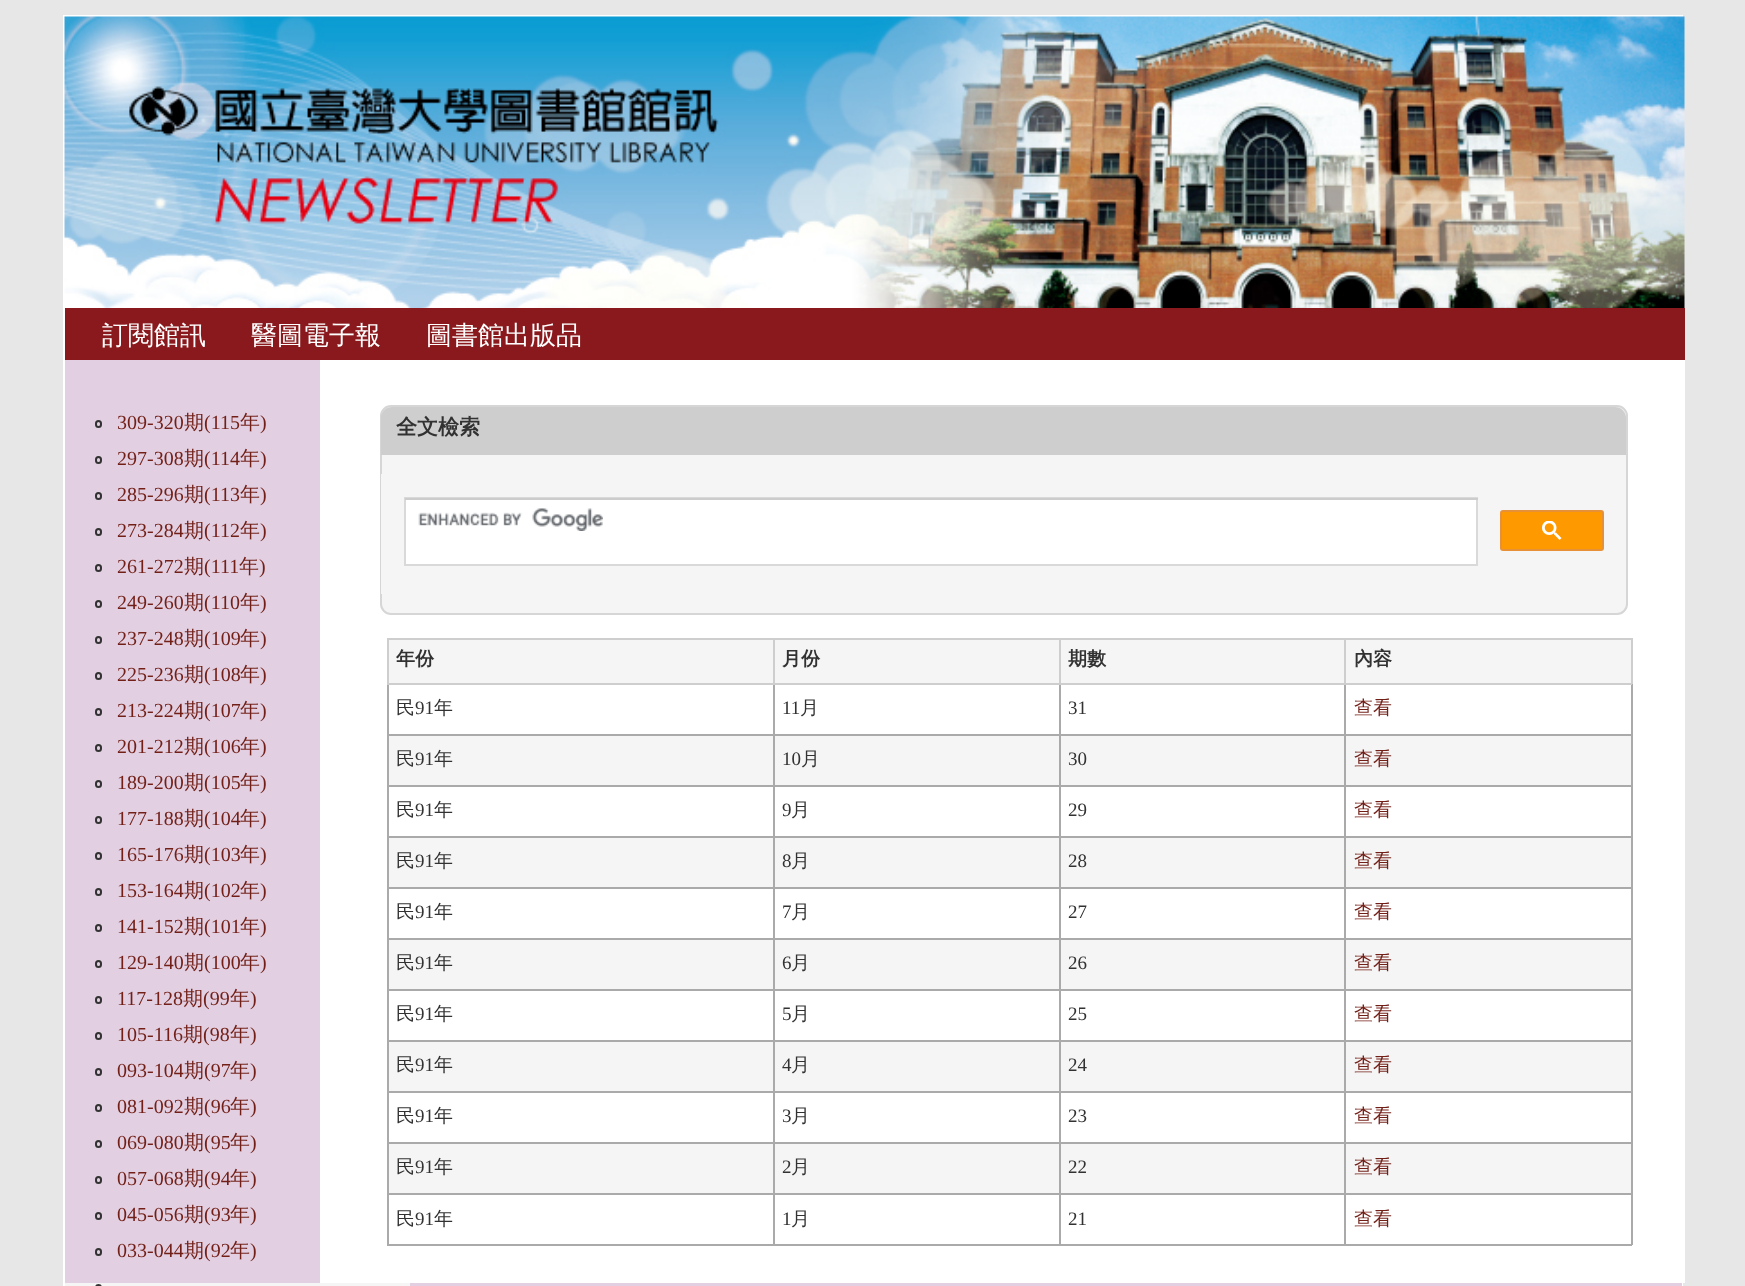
(async () => {
  const canvas = document.querySelector("canvas");
  canvas.width = 1745;
  canvas.height = 1286;
  const ctx = canvas.getContext("2d");
  ctx.miterLimit = 4;
  ctx.fontKerning = "normal";
  async function loadImage(src) {
    const img = new Image();
    img.src = src;
    await img.decode();
    return img;
  }

  ctx.fillStyle = "#e7e7e7";
  ctx.fillRect(0, 0, 1745, 1286);
  ctx.fillStyle = "#ffffff";
  ctx.fillRect(63, 15, 1620, 1271);
  ctx.drawImage(await loadImage("img/1.png"), 64, 16, 1621, 299);
  for (const [x, y, w, h, color] of [
    [65, 308, 1620, 52, "#8a191d"],
    [410, 1283, 1272, 3, "#e2d0e2"],
    [65, 1283, 345, 3, "#f5f5f5"],
    [65, 360, 255, 923, "#e2d0e2"],
  ]) {
    ctx.fillStyle = color;
    ctx.fillRect(x, y, w, h);
  }
  ctx.beginPath();
  ctx.roundRect(96, 421, 5, 6, 2.5);
  ctx.strokeStyle = "#323232";
  ctx.lineWidth = 2;
  ctx.stroke();
  ctx.beginPath();
  ctx.roundRect(96, 457, 5, 6, 2.5);
  ctx.stroke();
  ctx.beginPath();
  ctx.roundRect(96, 493, 5, 6, 2.5);
  ctx.stroke();
  ctx.beginPath();
  ctx.roundRect(96, 529, 5, 6, 2.5);
  ctx.stroke();
  ctx.beginPath();
  ctx.roundRect(96, 565, 5, 6, 2.5);
  ctx.stroke();
  ctx.beginPath();
  ctx.roundRect(96, 601, 5, 6, 2.5);
  ctx.stroke();
  ctx.beginPath();
  ctx.roundRect(96, 637, 5, 6, 2.5);
  ctx.stroke();
  ctx.beginPath();
  ctx.roundRect(96, 673, 5, 6, 2.5);
  ctx.stroke();
  ctx.beginPath();
  ctx.roundRect(96, 709, 5, 6, 2.5);
  ctx.stroke();
  ctx.beginPath();
  ctx.roundRect(96, 745, 5, 6, 2.5);
  ctx.stroke();
  ctx.beginPath();
  ctx.roundRect(96, 781, 5, 6, 2.5);
  ctx.stroke();
  ctx.beginPath();
  ctx.roundRect(96, 817, 5, 6, 2.5);
  ctx.stroke();
  ctx.beginPath();
  ctx.roundRect(96, 853, 5, 6, 2.5);
  ctx.stroke();
  ctx.beginPath();
  ctx.roundRect(96, 889, 5, 6, 2.5);
  ctx.stroke();
  ctx.beginPath();
  ctx.roundRect(96, 925, 5, 6, 2.5);
  ctx.stroke();
  ctx.beginPath();
  ctx.roundRect(96, 961, 5, 6, 2.5);
  ctx.stroke();
  ctx.beginPath();
  ctx.roundRect(96, 997, 5, 6, 2.5);
  ctx.stroke();
  ctx.beginPath();
  ctx.roundRect(96, 1033, 5, 6, 2.5);
  ctx.stroke();
  ctx.beginPath();
  ctx.roundRect(96, 1069, 5, 6, 2.5);
  ctx.stroke();
  ctx.beginPath();
  ctx.roundRect(96, 1105, 5, 6, 2.5);
  ctx.stroke();
  ctx.beginPath();
  ctx.roundRect(96, 1141, 5, 6, 2.5);
  ctx.stroke();
  ctx.beginPath();
  ctx.roundRect(96, 1177, 5, 6, 2.5);
  ctx.stroke();
  ctx.beginPath();
  ctx.roundRect(96, 1213, 5, 6, 2.5);
  ctx.stroke();
  ctx.beginPath();
  ctx.roundRect(96, 1249, 5, 6, 2.5);
  ctx.stroke();
  ctx.beginPath();
  ctx.roundRect(96, 1285, 5, 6, 2.5);
  ctx.stroke();
  ctx.fillStyle = "#ffffff";
  ctx.fillRect(1683, 360, 2, 923);
  ctx.fillStyle = "#f5f5f5";
  ctx.beginPath();
  ctx.roundRect(381, 406, 1246, 208, 10);
  ctx.fill();
  ctx.strokeStyle = "#d6d6d6";
  ctx.stroke();
  ctx.fillStyle = "#cecece";
  ctx.beginPath();
  ctx.roundRect(381, 407, 1245, 48, [11, 11, 0, 0]);
  ctx.fill();
  ctx.fillStyle = "#f5f5f5";
  ctx.fillRect(381, 474, 1, 120);
  ctx.fillStyle = "#ffffff";
  ctx.fillRect(406, 500, 1070, 64);
  ctx.strokeStyle = "#d9d9d9";
  ctx.strokeRect(405, 498, 1072, 67);
  ctx.fillStyle = "#cccccc";
  ctx.fillRect(405, 498, 1073, 2);
  ctx.drawImage(await loadImage("img/2.png"), 418, 508, 185, 23);
  ctx.fillStyle = "#ff9900";
  ctx.beginPath();
  ctx.roundRect(1501, 511, 102, 39, 2);
  ctx.fill();
  ctx.strokeStyle = "#e69138";
  ctx.stroke();
  ctx.drawImage(await loadImage("img/3.png"), 1542, 521, 20, 19);
  for (const [x, y, w, h, color] of [
    [389, 640, 384, 43, "#f5f5f5"],
    [1344, 638, 288, 2, "#cecece"],
    [1344, 734, 288, 2, "#aaaaaa"],
    [1344, 785, 288, 2, "#aaaaaa"],
    [1344, 836, 288, 2, "#aaaaaa"],
    [1344, 887, 288, 2, "#aaaaaa"],
    [1344, 938, 288, 2, "#aaaaaa"],
    [1344, 989, 288, 2, "#aaaaaa"],
    [1344, 1040, 288, 2, "#aaaaaa"],
    [1344, 1091, 288, 2, "#aaaaaa"],
    [1344, 1142, 288, 2, "#aaaaaa"],
    [1344, 1193, 288, 2, "#aaaaaa"],
    [1631, 1193, 2, 52, "#aaaaaa"],
    [1631, 1142, 2, 52, "#aaaaaa"],
    [1631, 1091, 2, 52, "#aaaaaa"],
    [1631, 1040, 2, 52, "#aaaaaa"],
    [1631, 989, 2, 52, "#aaaaaa"],
    [1631, 938, 2, 52, "#aaaaaa"],
    [1631, 887, 2, 52, "#aaaaaa"],
    [1631, 836, 2, 52, "#aaaaaa"],
    [1631, 785, 2, 52, "#aaaaaa"],
    [1631, 683, 2, 103, "#aaaaaa"],
    [1631, 638, 2, 46, "#cecece"],
    [1344, 1244, 288, 2, "#aaaaaa"],
    [1344, 1193, 2, 52, "#aaaaaa"],
    [1059, 1193, 287, 2, "#aaaaaa"],
    [1344, 1142, 2, 52, "#aaaaaa"],
    [1059, 1142, 287, 2, "#aaaaaa"],
    [1344, 1091, 2, 52, "#aaaaaa"],
    [1059, 1091, 287, 2, "#aaaaaa"],
    [1344, 1040, 2, 52, "#aaaaaa"],
    [1059, 1040, 287, 2, "#aaaaaa"],
    [1344, 989, 2, 52, "#aaaaaa"],
    [1059, 989, 287, 2, "#aaaaaa"],
    [1344, 938, 2, 52, "#aaaaaa"],
    [1059, 938, 287, 2, "#aaaaaa"],
    [1344, 887, 2, 52, "#aaaaaa"],
    [1059, 887, 287, 2, "#aaaaaa"],
    [1344, 836, 2, 52, "#aaaaaa"],
    [1059, 836, 287, 2, "#aaaaaa"],
    [1344, 785, 2, 52, "#aaaaaa"],
    [1059, 785, 287, 2, "#aaaaaa"],
    [1344, 734, 2, 52, "#aaaaaa"],
    [1059, 734, 287, 2, "#aaaaaa"],
    [1344, 683, 2, 52, "#aaaaaa"],
    [1344, 683, 288, 2, "#cecece"],
    [1344, 638, 2, 46, "#cecece"],
    [1059, 638, 287, 2, "#cecece"],
    [1059, 1244, 287, 2, "#aaaaaa"],
    [1059, 1193, 2, 52, "#aaaaaa"],
    [773, 1193, 288, 2, "#aaaaaa"],
    [1059, 1142, 2, 52, "#aaaaaa"],
    [773, 1142, 288, 2, "#aaaaaa"],
    [1059, 1091, 2, 52, "#aaaaaa"],
    [773, 1091, 288, 2, "#aaaaaa"],
    [1059, 1040, 2, 52, "#aaaaaa"],
    [773, 1040, 288, 2, "#aaaaaa"],
    [1059, 989, 2, 52, "#aaaaaa"],
    [773, 989, 288, 2, "#aaaaaa"],
    [1059, 938, 2, 52, "#aaaaaa"],
    [773, 938, 288, 2, "#aaaaaa"],
    [1059, 887, 2, 52, "#aaaaaa"],
    [773, 887, 288, 2, "#aaaaaa"],
    [1059, 836, 2, 52, "#aaaaaa"],
    [773, 836, 288, 2, "#aaaaaa"],
    [1059, 785, 2, 52, "#aaaaaa"],
    [773, 785, 288, 2, "#aaaaaa"],
    [1059, 734, 2, 52, "#aaaaaa"],
    [773, 734, 288, 2, "#aaaaaa"],
    [1059, 683, 2, 52, "#aaaaaa"],
    [1059, 683, 287, 2, "#cecece"],
    [1059, 638, 2, 46, "#cecece"],
    [773, 638, 288, 2, "#cecece"],
    [773, 1244, 288, 2, "#aaaaaa"],
    [773, 1193, 2, 52, "#aaaaaa"],
    [387, 1193, 387, 2, "#aaaaaa"],
    [773, 1142, 2, 52, "#aaaaaa"],
    [387, 1142, 387, 2, "#aaaaaa"],
    [773, 1091, 2, 52, "#aaaaaa"],
    [387, 1091, 387, 2, "#aaaaaa"],
    [773, 1040, 2, 52, "#aaaaaa"],
    [387, 1040, 387, 2, "#aaaaaa"],
    [773, 989, 2, 52, "#aaaaaa"],
    [387, 989, 387, 2, "#aaaaaa"],
    [773, 938, 2, 52, "#aaaaaa"],
    [387, 938, 387, 2, "#aaaaaa"],
    [773, 887, 2, 52, "#aaaaaa"],
    [387, 887, 387, 2, "#aaaaaa"],
    [773, 836, 2, 52, "#aaaaaa"],
    [387, 836, 387, 2, "#aaaaaa"],
    [773, 785, 2, 52, "#aaaaaa"],
    [387, 785, 387, 2, "#aaaaaa"],
    [773, 734, 2, 52, "#aaaaaa"],
    [387, 734, 387, 2, "#aaaaaa"],
    [773, 683, 2, 52, "#aaaaaa"],
    [773, 683, 288, 2, "#cecece"],
    [773, 638, 2, 46, "#cecece"],
    [387, 638, 387, 2, "#cecece"],
    [387, 1244, 387, 2, "#aaaaaa"],
    [387, 1193, 2, 52, "#aaaaaa"],
    [387, 1142, 2, 52, "#aaaaaa"],
    [387, 1091, 2, 52, "#aaaaaa"],
    [387, 1040, 2, 52, "#aaaaaa"],
    [387, 989, 2, 52, "#aaaaaa"],
    [387, 938, 2, 52, "#aaaaaa"],
    [387, 887, 2, 52, "#aaaaaa"],
    [387, 836, 2, 52, "#aaaaaa"],
    [387, 785, 2, 52, "#aaaaaa"],
    [387, 683, 2, 103, "#aaaaaa"],
    [387, 683, 387, 2, "#cecece"],
    [387, 638, 2, 46, "#cecece"],
    [775, 640, 284, 43, "#f5f5f5"],
    [1061, 640, 283, 43, "#f5f5f5"],
    [1346, 640, 285, 43, "#f5f5f5"],
    [389, 736, 384, 49, "#f5f5f5"],
    [775, 736, 284, 49, "#f5f5f5"],
    [1061, 736, 283, 49, "#f5f5f5"],
    [1346, 736, 285, 49, "#f5f5f5"],
    [389, 838, 384, 49, "#f5f5f5"],
    [775, 838, 284, 49, "#f5f5f5"],
    [1061, 838, 283, 49, "#f5f5f5"],
    [1346, 838, 285, 49, "#f5f5f5"],
    [389, 940, 384, 49, "#f5f5f5"],
    [775, 940, 284, 49, "#f5f5f5"],
    [1061, 940, 283, 49, "#f5f5f5"],
    [1346, 940, 285, 49, "#f5f5f5"],
    [389, 1042, 384, 49, "#f5f5f5"],
    [775, 1042, 284, 49, "#f5f5f5"],
    [1061, 1042, 283, 49, "#f5f5f5"],
    [1346, 1042, 285, 49, "#f5f5f5"],
    [389, 1144, 384, 49, "#f5f5f5"],
    [775, 1144, 284, 49, "#f5f5f5"],
    [1061, 1144, 283, 49, "#f5f5f5"],
    [1346, 1144, 285, 49, "#f5f5f5"],
  ]) {
    ctx.fillStyle = color;
    ctx.fillRect(x, y, w, h);
  }
  ctx.font = "500 26px WenQuanYi Zen Hei";
  ctx.fillStyle = "#ffffff";
  for (const [text, x, y] of [
    ["訂閱館訊", 102, 344],
    ["醫圖電子報", 251, 344],
    ["圖書館出版品", 426, 344],
  ]) {
    ctx.fillText(text, x, y);
  }
  ctx.font = "20px Liberation Serif";
  ctx.fillStyle = "#721f17";
  ctx.fillText("309-320", 117, 429);
  ctx.font = "500 20px WenQuanYi Zen Hei";
  ctx.fillText("期", 184, 429);
  ctx.font = "20px Liberation Serif";
  ctx.fillText("(115", 204, 429);
  ctx.font = "500 20px WenQuanYi Zen Hei";
  ctx.fillText("年", 240, 429);
  ctx.font = "20px Liberation Serif";
  ctx.fillText(")", 260, 429);
  ctx.fillText("297-308", 117, 465);
  ctx.font = "500 20px WenQuanYi Zen Hei";
  ctx.fillText("期", 184, 465);
  ctx.font = "20px Liberation Serif";
  ctx.fillText("(114", 204, 465);
  ctx.font = "500 20px WenQuanYi Zen Hei";
  ctx.fillText("年", 240, 465);
  ctx.font = "20px Liberation Serif";
  ctx.fillText(")", 260, 465);
  ctx.fillText("285-296", 117, 501);
  ctx.font = "500 20px WenQuanYi Zen Hei";
  ctx.fillText("期", 184, 501);
  ctx.font = "20px Liberation Serif";
  ctx.fillText("(113", 204, 501);
  ctx.font = "500 20px WenQuanYi Zen Hei";
  ctx.fillText("年", 240, 501);
  ctx.font = "20px Liberation Serif";
  ctx.fillText(")", 260, 501);
  ctx.fillText("273-284", 117, 537);
  ctx.font = "500 20px WenQuanYi Zen Hei";
  ctx.fillText("期", 184, 537);
  ctx.font = "20px Liberation Serif";
  ctx.fillText("(112", 204, 537);
  ctx.font = "500 20px WenQuanYi Zen Hei";
  ctx.fillText("年", 240, 537);
  ctx.font = "20px Liberation Serif";
  ctx.fillText(")", 260, 537);
  ctx.fillText("261-272", 117, 573);
  ctx.font = "500 20px WenQuanYi Zen Hei";
  ctx.fillText("期", 184, 573);
  ctx.font = "20px Liberation Serif";
  ctx.fillText("(111", 204, 573);
  ctx.font = "500 20px WenQuanYi Zen Hei";
  ctx.fillText("年", 239, 573);
  ctx.font = "20px Liberation Serif";
  ctx.fillText(")", 259, 573);
  ctx.fillText("249-260", 117, 609);
  ctx.font = "500 20px WenQuanYi Zen Hei";
  ctx.fillText("期", 184, 609);
  ctx.font = "20px Liberation Serif";
  ctx.fillText("(110", 204, 609);
  ctx.font = "500 20px WenQuanYi Zen Hei";
  ctx.fillText("年", 240, 609);
  ctx.font = "20px Liberation Serif";
  ctx.fillText(")", 260, 609);
  ctx.fillText("237-248", 117, 645);
  ctx.font = "500 20px WenQuanYi Zen Hei";
  ctx.fillText("期", 184, 645);
  ctx.font = "20px Liberation Serif";
  ctx.fillText("(109", 204, 645);
  ctx.font = "500 20px WenQuanYi Zen Hei";
  ctx.fillText("年", 240, 645);
  ctx.font = "20px Liberation Serif";
  ctx.fillText(")", 260, 645);
  ctx.fillText("225-236", 117, 681);
  ctx.font = "500 20px WenQuanYi Zen Hei";
  ctx.fillText("期", 184, 681);
  ctx.font = "20px Liberation Serif";
  ctx.fillText("(108", 204, 681);
  ctx.font = "500 20px WenQuanYi Zen Hei";
  ctx.fillText("年", 240, 681);
  ctx.font = "20px Liberation Serif";
  ctx.fillText(")", 260, 681);
  ctx.fillText("213-224", 117, 717);
  ctx.font = "500 20px WenQuanYi Zen Hei";
  ctx.fillText("期", 184, 717);
  ctx.font = "20px Liberation Serif";
  ctx.fillText("(107", 204, 717);
  ctx.font = "500 20px WenQuanYi Zen Hei";
  ctx.fillText("年", 240, 717);
  ctx.font = "20px Liberation Serif";
  ctx.fillText(")", 260, 717);
  ctx.fillText("201-212", 117, 753);
  ctx.font = "500 20px WenQuanYi Zen Hei";
  ctx.fillText("期", 184, 753);
  ctx.font = "20px Liberation Serif";
  ctx.fillText("(106", 204, 753);
  ctx.font = "500 20px WenQuanYi Zen Hei";
  ctx.fillText("年", 240, 753);
  ctx.font = "20px Liberation Serif";
  ctx.fillText(")", 260, 753);
  ctx.fillText("189-200", 117, 789);
  ctx.font = "500 20px WenQuanYi Zen Hei";
  ctx.fillText("期", 184, 789);
  ctx.font = "20px Liberation Serif";
  ctx.fillText("(105", 204, 789);
  ctx.font = "500 20px WenQuanYi Zen Hei";
  ctx.fillText("年", 240, 789);
  ctx.font = "20px Liberation Serif";
  ctx.fillText(")", 260, 789);
  ctx.fillText("177-188", 117, 825);
  ctx.font = "500 20px WenQuanYi Zen Hei";
  ctx.fillText("期", 184, 825);
  ctx.font = "20px Liberation Serif";
  ctx.fillText("(104", 204, 825);
  ctx.font = "500 20px WenQuanYi Zen Hei";
  ctx.fillText("年", 240, 825);
  ctx.font = "20px Liberation Serif";
  ctx.fillText(")", 260, 825);
  ctx.fillText("165-176", 117, 861);
  ctx.font = "500 20px WenQuanYi Zen Hei";
  ctx.fillText("期", 184, 861);
  ctx.font = "20px Liberation Serif";
  ctx.fillText("(103", 204, 861);
  ctx.font = "500 20px WenQuanYi Zen Hei";
  ctx.fillText("年", 240, 861);
  ctx.font = "20px Liberation Serif";
  ctx.fillText(")", 260, 861);
  ctx.fillText("153-164", 117, 897);
  ctx.font = "500 20px WenQuanYi Zen Hei";
  ctx.fillText("期", 184, 897);
  ctx.font = "20px Liberation Serif";
  ctx.fillText("(102", 204, 897);
  ctx.font = "500 20px WenQuanYi Zen Hei";
  ctx.fillText("年", 240, 897);
  ctx.font = "20px Liberation Serif";
  ctx.fillText(")", 260, 897);
  ctx.fillText("141-152", 117, 933);
  ctx.font = "500 20px WenQuanYi Zen Hei";
  ctx.fillText("期", 184, 933);
  ctx.font = "20px Liberation Serif";
  ctx.fillText("(101", 204, 933);
  ctx.font = "500 20px WenQuanYi Zen Hei";
  ctx.fillText("年", 240, 933);
  ctx.font = "20px Liberation Serif";
  ctx.fillText(")", 260, 933);
  ctx.fillText("129-140", 117, 969);
  ctx.font = "500 20px WenQuanYi Zen Hei";
  ctx.fillText("期", 184, 969);
  ctx.font = "20px Liberation Serif";
  ctx.fillText("(100", 204, 969);
  ctx.font = "500 20px WenQuanYi Zen Hei";
  ctx.fillText("年", 240, 969);
  ctx.font = "20px Liberation Serif";
  ctx.fillText(")", 260, 969);
  ctx.fillText("117-128", 117, 1005);
  ctx.font = "500 20px WenQuanYi Zen Hei";
  ctx.fillText("期", 183, 1005);
  ctx.font = "20px Liberation Serif";
  ctx.fillText("(99", 203, 1005);
  ctx.font = "500 20px WenQuanYi Zen Hei";
  ctx.fillText("年", 230, 1005);
  ctx.font = "20px Liberation Serif";
  ctx.fillText(")", 250, 1005);
  ctx.fillText("105-116", 117, 1041);
  ctx.font = "500 20px WenQuanYi Zen Hei";
  ctx.fillText("期", 183, 1041);
  ctx.font = "20px Liberation Serif";
  ctx.fillText("(98", 203, 1041);
  ctx.font = "500 20px WenQuanYi Zen Hei";
  ctx.fillText("年", 230, 1041);
  ctx.font = "20px Liberation Serif";
  ctx.fillText(")", 250, 1041);
  ctx.fillText("093-104", 117, 1077);
  ctx.font = "500 20px WenQuanYi Zen Hei";
  ctx.fillText("期", 184, 1077);
  ctx.font = "20px Liberation Serif";
  ctx.fillText("(97", 204, 1077);
  ctx.font = "500 20px WenQuanYi Zen Hei";
  ctx.fillText("年", 230, 1077);
  ctx.font = "20px Liberation Serif";
  ctx.fillText(")", 250, 1077);
  ctx.fillText("081-092", 117, 1113);
  ctx.font = "500 20px WenQuanYi Zen Hei";
  ctx.fillText("期", 184, 1113);
  ctx.font = "20px Liberation Serif";
  ctx.fillText("(96", 204, 1113);
  ctx.font = "500 20px WenQuanYi Zen Hei";
  ctx.fillText("年", 230, 1113);
  ctx.font = "20px Liberation Serif";
  ctx.fillText(")", 250, 1113);
  ctx.fillText("069-080", 117, 1149);
  ctx.font = "500 20px WenQuanYi Zen Hei";
  ctx.fillText("期", 184, 1149);
  ctx.font = "20px Liberation Serif";
  ctx.fillText("(95", 204, 1149);
  ctx.font = "500 20px WenQuanYi Zen Hei";
  ctx.fillText("年", 230, 1149);
  ctx.font = "20px Liberation Serif";
  ctx.fillText(")", 250, 1149);
  ctx.fillText("057-068", 117, 1185);
  ctx.font = "500 20px WenQuanYi Zen Hei";
  ctx.fillText("期", 184, 1185);
  ctx.font = "20px Liberation Serif";
  ctx.fillText("(94", 204, 1185);
  ctx.font = "500 20px WenQuanYi Zen Hei";
  ctx.fillText("年", 230, 1185);
  ctx.font = "20px Liberation Serif";
  ctx.fillText(")", 250, 1185);
  ctx.fillText("045-056", 117, 1221);
  ctx.font = "500 20px WenQuanYi Zen Hei";
  ctx.fillText("期", 184, 1221);
  ctx.font = "20px Liberation Serif";
  ctx.fillText("(93", 204, 1221);
  ctx.font = "500 20px WenQuanYi Zen Hei";
  ctx.fillText("年", 230, 1221);
  ctx.font = "20px Liberation Serif";
  ctx.fillText(")", 250, 1221);
  ctx.fillText("033-044", 117, 1257);
  ctx.font = "500 20px WenQuanYi Zen Hei";
  ctx.fillText("期", 184, 1257);
  ctx.font = "20px Liberation Serif";
  ctx.fillText("(92", 204, 1257);
  ctx.font = "500 20px WenQuanYi Zen Hei";
  ctx.fillText("年", 230, 1257);
  ctx.font = "20px Liberation Serif";
  ctx.fillText(")", 250, 1257);
  ctx.font = "bold 21px WenQuanYi Zen Hei";
  ctx.fillStyle = "#323232";
  ctx.fillText("全文檢索", 396, 434);
  ctx.font = "bold 19px WenQuanYi Zen Hei";
  for (const [text, x, y] of [
    ["年份", 396, 665],
    ["月份", 782, 665],
    ["期數", 1068, 665],
    ["內容", 1354, 665],
  ]) {
    ctx.fillText(text, x, y);
  }
  ctx.font = "500 19px WenQuanYi Zen Hei";
  ctx.fillText("民", 396, 714);
  ctx.font = "19px Liberation Serif";
  ctx.fillText("91", 415, 714);
  ctx.font = "500 19px WenQuanYi Zen Hei";
  ctx.fillText("年", 434, 714);
  ctx.font = "19px Liberation Serif";
  ctx.fillText("11", 782, 714);
  ctx.font = "500 19px WenQuanYi Zen Hei";
  ctx.fillText("月", 800, 714);
  ctx.font = "19px Liberation Serif";
  ctx.fillText("31", 1068, 714);
  ctx.font = "500 19px WenQuanYi Zen Hei";
  ctx.fillStyle = "#721f17";
  ctx.fillText("查看", 1354, 714);
  ctx.fillStyle = "#323232";
  ctx.fillText("民", 396, 765);
  ctx.font = "19px Liberation Serif";
  ctx.fillText("91", 415, 765);
  ctx.font = "500 19px WenQuanYi Zen Hei";
  ctx.fillText("年", 434, 765);
  ctx.font = "19px Liberation Serif";
  ctx.fillText("10", 782, 765);
  ctx.font = "500 19px WenQuanYi Zen Hei";
  ctx.fillText("月", 801, 765);
  ctx.font = "19px Liberation Serif";
  ctx.fillText("30", 1068, 765);
  ctx.font = "500 19px WenQuanYi Zen Hei";
  ctx.fillStyle = "#721f17";
  ctx.fillText("查看", 1354, 765);
  ctx.fillStyle = "#323232";
  ctx.fillText("民", 396, 816);
  ctx.font = "19px Liberation Serif";
  ctx.fillText("91", 415, 816);
  ctx.font = "500 19px WenQuanYi Zen Hei";
  ctx.fillText("年", 434, 816);
  ctx.font = "19px Liberation Serif";
  ctx.fillText("9", 782, 816);
  ctx.font = "500 19px WenQuanYi Zen Hei";
  ctx.fillText("月", 791, 816);
  ctx.font = "19px Liberation Serif";
  ctx.fillText("29", 1068, 816);
  ctx.font = "500 19px WenQuanYi Zen Hei";
  ctx.fillStyle = "#721f17";
  ctx.fillText("查看", 1354, 816);
  ctx.fillStyle = "#323232";
  ctx.fillText("民", 396, 867);
  ctx.font = "19px Liberation Serif";
  ctx.fillText("91", 415, 867);
  ctx.font = "500 19px WenQuanYi Zen Hei";
  ctx.fillText("年", 434, 867);
  ctx.font = "19px Liberation Serif";
  ctx.fillText("8", 782, 867);
  ctx.font = "500 19px WenQuanYi Zen Hei";
  ctx.fillText("月", 791, 867);
  ctx.font = "19px Liberation Serif";
  ctx.fillText("28", 1068, 867);
  ctx.font = "500 19px WenQuanYi Zen Hei";
  ctx.fillStyle = "#721f17";
  ctx.fillText("查看", 1354, 867);
  ctx.fillStyle = "#323232";
  ctx.fillText("民", 396, 918);
  ctx.font = "19px Liberation Serif";
  ctx.fillText("91", 415, 918);
  ctx.font = "500 19px WenQuanYi Zen Hei";
  ctx.fillText("年", 434, 918);
  ctx.font = "19px Liberation Serif";
  ctx.fillText("7", 782, 918);
  ctx.font = "500 19px WenQuanYi Zen Hei";
  ctx.fillText("月", 791, 918);
  ctx.font = "19px Liberation Serif";
  ctx.fillText("27", 1068, 918);
  ctx.font = "500 19px WenQuanYi Zen Hei";
  ctx.fillStyle = "#721f17";
  ctx.fillText("查看", 1354, 918);
  ctx.fillStyle = "#323232";
  ctx.fillText("民", 396, 969);
  ctx.font = "19px Liberation Serif";
  ctx.fillText("91", 415, 969);
  ctx.font = "500 19px WenQuanYi Zen Hei";
  ctx.fillText("年", 434, 969);
  ctx.font = "19px Liberation Serif";
  ctx.fillText("6", 782, 969);
  ctx.font = "500 19px WenQuanYi Zen Hei";
  ctx.fillText("月", 791, 969);
  ctx.font = "19px Liberation Serif";
  ctx.fillText("26", 1068, 969);
  ctx.font = "500 19px WenQuanYi Zen Hei";
  ctx.fillStyle = "#721f17";
  ctx.fillText("查看", 1354, 969);
  ctx.fillStyle = "#323232";
  ctx.fillText("民", 396, 1020);
  ctx.font = "19px Liberation Serif";
  ctx.fillText("91", 415, 1020);
  ctx.font = "500 19px WenQuanYi Zen Hei";
  ctx.fillText("年", 434, 1020);
  ctx.font = "19px Liberation Serif";
  ctx.fillText("5", 782, 1020);
  ctx.font = "500 19px WenQuanYi Zen Hei";
  ctx.fillText("月", 791, 1020);
  ctx.font = "19px Liberation Serif";
  ctx.fillText("25", 1068, 1020);
  ctx.font = "500 19px WenQuanYi Zen Hei";
  ctx.fillStyle = "#721f17";
  ctx.fillText("查看", 1354, 1020);
  ctx.fillStyle = "#323232";
  ctx.fillText("民", 396, 1071);
  ctx.font = "19px Liberation Serif";
  ctx.fillText("91", 415, 1071);
  ctx.font = "500 19px WenQuanYi Zen Hei";
  ctx.fillText("年", 434, 1071);
  ctx.font = "19px Liberation Serif";
  ctx.fillText("4", 782, 1071);
  ctx.font = "500 19px WenQuanYi Zen Hei";
  ctx.fillText("月", 791, 1071);
  ctx.font = "19px Liberation Serif";
  ctx.fillText("24", 1068, 1071);
  ctx.font = "500 19px WenQuanYi Zen Hei";
  ctx.fillStyle = "#721f17";
  ctx.fillText("查看", 1354, 1071);
  ctx.fillStyle = "#323232";
  ctx.fillText("民", 396, 1122);
  ctx.font = "19px Liberation Serif";
  ctx.fillText("91", 415, 1122);
  ctx.font = "500 19px WenQuanYi Zen Hei";
  ctx.fillText("年", 434, 1122);
  ctx.font = "19px Liberation Serif";
  ctx.fillText("3", 782, 1122);
  ctx.font = "500 19px WenQuanYi Zen Hei";
  ctx.fillText("月", 791, 1122);
  ctx.font = "19px Liberation Serif";
  ctx.fillText("23", 1068, 1122);
  ctx.font = "500 19px WenQuanYi Zen Hei";
  ctx.fillStyle = "#721f17";
  ctx.fillText("查看", 1354, 1122);
  ctx.fillStyle = "#323232";
  ctx.fillText("民", 396, 1173);
  ctx.font = "19px Liberation Serif";
  ctx.fillText("91", 415, 1173);
  ctx.font = "500 19px WenQuanYi Zen Hei";
  ctx.fillText("年", 434, 1173);
  ctx.font = "19px Liberation Serif";
  ctx.fillText("2", 782, 1173);
  ctx.font = "500 19px WenQuanYi Zen Hei";
  ctx.fillText("月", 791, 1173);
  ctx.font = "19px Liberation Serif";
  ctx.fillText("22", 1068, 1173);
  ctx.font = "500 19px WenQuanYi Zen Hei";
  ctx.fillStyle = "#721f17";
  ctx.fillText("查看", 1354, 1173);
  ctx.fillStyle = "#323232";
  ctx.fillText("民", 396, 1225);
  ctx.font = "19px Liberation Serif";
  ctx.fillText("91", 415, 1225);
  ctx.font = "500 19px WenQuanYi Zen Hei";
  ctx.fillText("年", 434, 1225);
  ctx.font = "19px Liberation Serif";
  ctx.fillText("1", 782, 1225);
  ctx.font = "500 19px WenQuanYi Zen Hei";
  ctx.fillText("月", 791, 1225);
  ctx.font = "19px Liberation Serif";
  ctx.fillText("21", 1068, 1225);
  ctx.font = "500 19px WenQuanYi Zen Hei";
  ctx.fillStyle = "#721f17";
  ctx.fillText("查看", 1354, 1225);
})();
